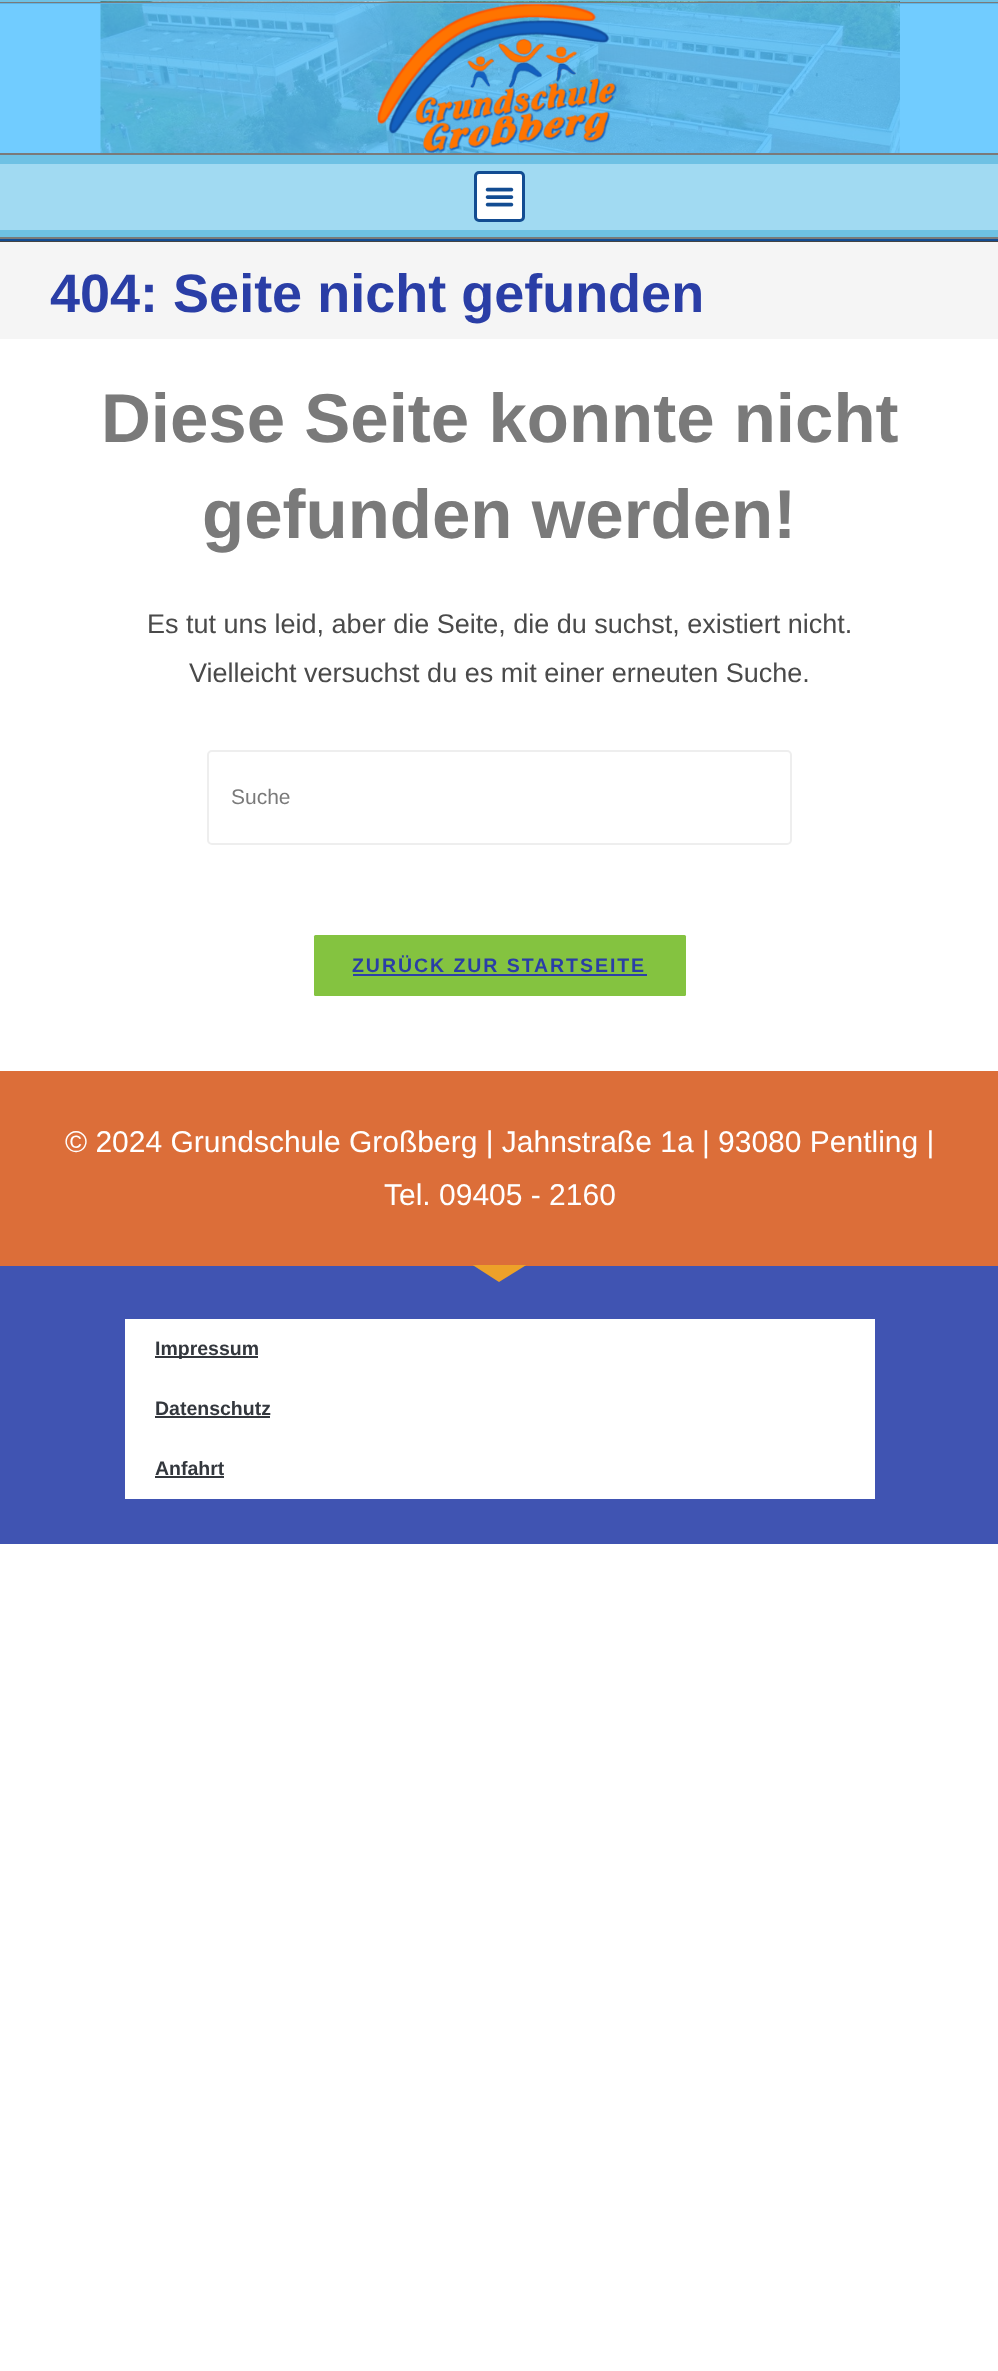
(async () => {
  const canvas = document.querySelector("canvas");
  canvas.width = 998;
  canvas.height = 2371;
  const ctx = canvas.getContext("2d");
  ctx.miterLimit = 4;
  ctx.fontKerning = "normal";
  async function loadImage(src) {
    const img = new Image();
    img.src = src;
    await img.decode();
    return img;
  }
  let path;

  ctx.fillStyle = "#ffffff";
  ctx.fillRect(0, 0, 998, 2371);
  for (const [x, y, w, h, color] of [
    [0, 241, 998, 1, "#444444"],
    [0, 0, 998, 2, "#6ec1e4"],
    [0, 4, 998, 149, "#71ccff"],
  ]) {
    ctx.fillStyle = color;
    ctx.fillRect(x, y, w, h);
  }
  ctx.drawImage(await loadImage("img/1.png"), 100, 1, 800, 152);
  for (const [x, y, w, h, color] of [
    [0, 2, 998, 1, "#7a7a7a"],
    [0, 3, 998, 1, "#5bb4e4"],
    [0, 153, 998, 2, "#7a7a7a"],
  ]) {
    ctx.fillStyle = color;
    ctx.fillRect(x, y, w, h);
  }
  ctx.drawImage(await loadImage("img/2.png"), 376, 3, 241, 150);
  for (const [x, y, w, h, color] of [
    [0, 155, 998, 82, "#6ec1e4"],
    [0, 237, 998, 2, "#7a7a7a"],
    [0, 164, 998, 66, "#a1daf2"],
  ]) {
    ctx.fillStyle = color;
    ctx.fillRect(x, y, w, h);
  }
  ctx.fillStyle = "#ffffff";
  ctx.beginPath();
  ctx.roundRect(475.5, 172.5, 48, 48, 3.5);
  ctx.fill();
  ctx.strokeStyle = "#124c92";
  ctx.lineWidth = 3;
  ctx.stroke();
  ctx.drawImage(await loadImage("img/3.png"), 485, 187, 29, 20);
  ctx.fillStyle = "#124c92";
  ctx.fillRect(0, 239, 998, 2);
  ctx.fillStyle = "#f5f5f5";
  ctx.fillRect(0, 242, 998, 97);
  ctx.beginPath();
  ctx.roundRect(208, 751, 583, 93, 4);
  ctx.strokeStyle = "#eeeeee";
  ctx.lineWidth = 2;
  ctx.stroke();
  ctx.fillStyle = "#84c340";
  ctx.beginPath();
  ctx.roundRect(314, 935, 372, 61, 1.5);
  ctx.fill();
  for (const [x, y, w, h, color] of [
    [353, 974, 294, 2, "#2d40a7"],
    [0, 1071, 998, 195, "#dc6e39"],
    [0, 1266, 998, 278, "#4054b2"],
  ]) {
    ctx.fillStyle = color;
    ctx.fillRect(x, y, w, h);
  }
  ctx.save();
  ctx.beginPath();
  ctx.rect(0, 1265, 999, 18);
  ctx.clip();
  ctx.fillStyle = "#eda129";
  path = new Path2D("M499 1282L471 1264H528Z");
  ctx.fill(path);
  ctx.restore();
  for (const [x, y, w, h, color] of [
    [125, 1319, 750, 180, "#ffffff"],
    [155, 1356, 103, 2, "#33373d"],
    [155, 1416, 115, 2, "#33373d"],
    [155, 1476, 69, 2, "#33373d"],
  ]) {
    ctx.fillStyle = color;
    ctx.fillRect(x, y, w, h);
  }
  ctx.font = "bold 54px Liberation Sans";
  ctx.fillStyle = "#2a3ea6";
  ctx.fillText("404: Seite nicht gefunden", 50, 312);
  ctx.font = "bold 69px Liberation Sans";
  ctx.fillStyle = "#7a7a7a";
  ctx.fillText("Diese Seite konnte nicht", 101, 442);
  ctx.fillText("gefunden werden!", 202, 538);
  ctx.font = "27px Liberation Sans";
  ctx.fillStyle = "#4a4a4a";
  ctx.fillText("Es tut uns leid, aber die Seite, die du suchst, existiert nicht.", 147, 633);
  ctx.fillText("Vielleicht versuchst du es mit einer erneuten Suche.", 189, 682);
  ctx.font = "21px Liberation Sans";
  ctx.fillStyle = "#7a7a7a";
  ctx.fillText("Suche", 231, 804);
  ctx.letterSpacing = "1.95px";
  ctx.font = "bold 19.5px Liberation Sans";
  ctx.fillStyle = "#2a3ea6";
  ctx.fillText("ZURÜCK ZUR STARTSEITE", 352, 972);
  ctx.letterSpacing = "0px";
  ctx.font = "30px Liberation Sans";
  ctx.fillStyle = "#ffffff";
  ctx.fillText("© 2024 Grundschule Großberg | Jahnstraße 1a | 93080 Pentling |", 65, 1152);
  ctx.fillText("Tel. 09405 - 2160", 384, 1205);
  ctx.font = "bold 19.5px Liberation Sans";
  ctx.fillStyle = "#33373d";
  for (const [text, x, y] of [
    ["Impressum", 155, 1355],
    ["Datenschutz", 155, 1415],
    ["Anfahrt", 155, 1475],
  ]) {
    ctx.fillText(text, x, y);
  }
})();
